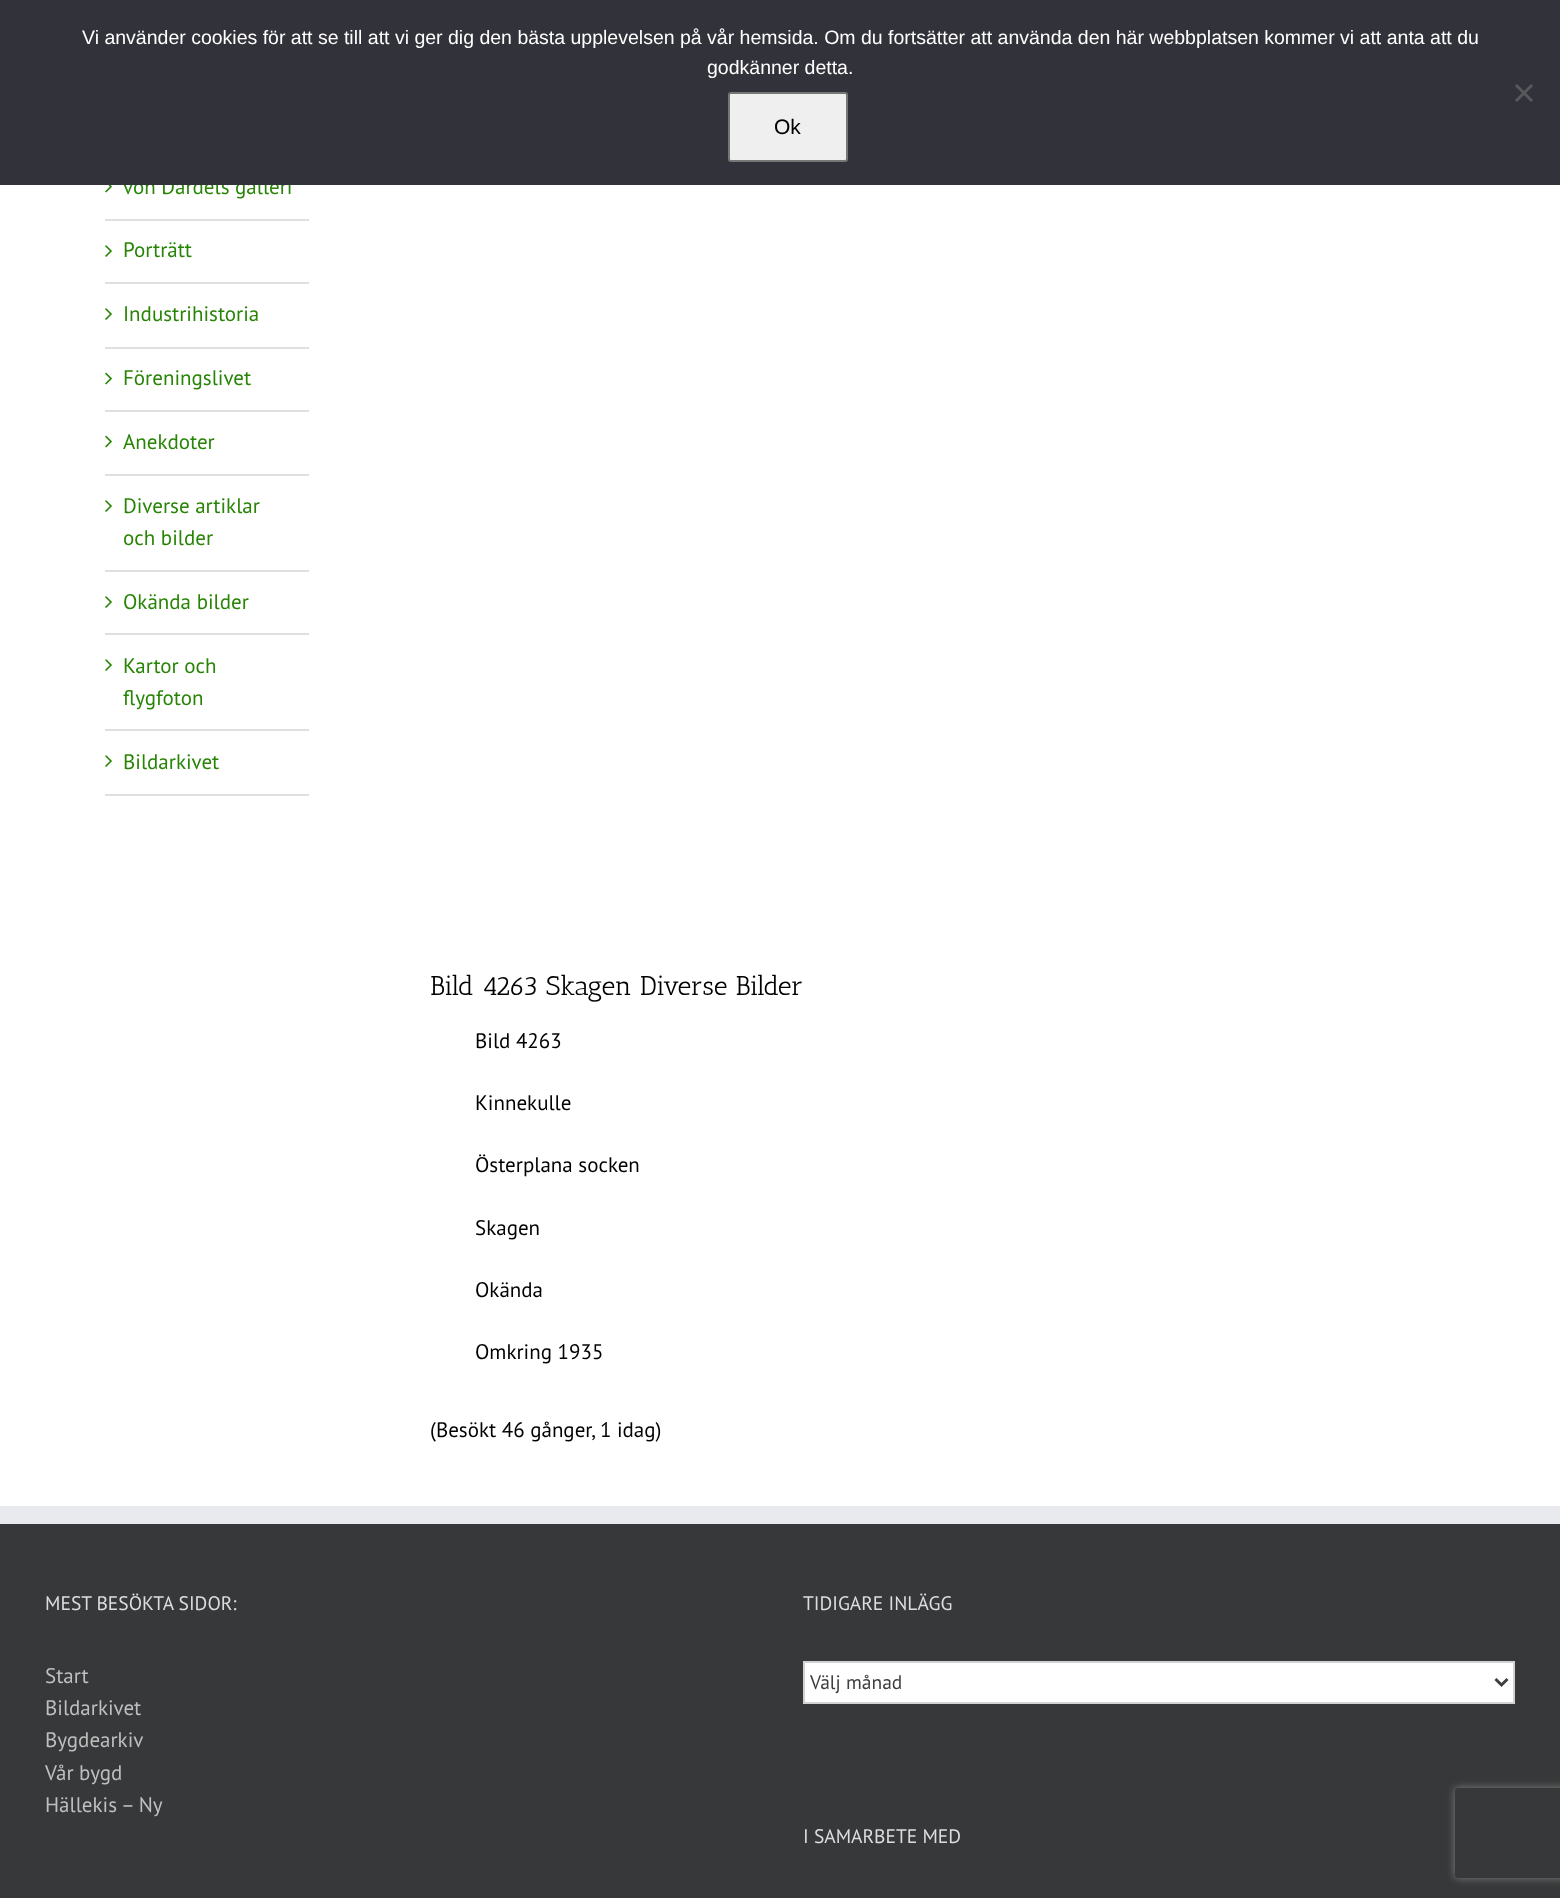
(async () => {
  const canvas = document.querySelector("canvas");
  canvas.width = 1560;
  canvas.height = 1898;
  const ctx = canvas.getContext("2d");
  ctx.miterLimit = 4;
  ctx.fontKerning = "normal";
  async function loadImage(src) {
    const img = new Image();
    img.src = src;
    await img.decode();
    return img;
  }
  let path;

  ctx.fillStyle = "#ffffff";
  ctx.fillRect(0, 0, 1560, 1898);
  ctx.fillStyle = "#e0dede";
  ctx.fillRect(105, 219, 204, 2);
  ctx.drawImage(await loadImage("img/1.png"), 105, 185, 7, 8);
  ctx.fillRect(105, 282, 204, 2);
  ctx.drawImage(await loadImage("img/2.png"), 105, 245, 7, 12);
  ctx.fillRect(105, 347, 204, 2);
  ctx.drawImage(await loadImage("img/2.png"), 105, 308, 7, 12);
  ctx.fillRect(105, 410, 204, 2);
  ctx.drawImage(await loadImage("img/3.png"), 105, 372, 7, 13);
  ctx.fillRect(105, 474, 204, 2);
  ctx.drawImage(await loadImage("img/3.png"), 105, 435, 7, 13);
  ctx.fillRect(105, 570, 204, 2);
  ctx.drawImage(await loadImage("img/2.png"), 105, 500, 7, 12);
  ctx.fillRect(105, 633, 204, 2);
  ctx.drawImage(await loadImage("img/2.png"), 105, 596, 7, 12);
  ctx.fillRect(105, 729, 204, 2);
  ctx.drawImage(await loadImage("img/2.png"), 105, 659, 7, 12);
  ctx.fillRect(105, 794, 204, 2);
  ctx.drawImage(await loadImage("img/2.png"), 105, 755, 7, 12);
  ctx.fillStyle = "#363839";
  ctx.fillRect(0, 1524, 1560, 374);
  ctx.fillStyle = "#e9eaee";
  ctx.fillRect(0, 1506, 1560, 18);
  ctx.fillStyle = "#ffffff";
  ctx.beginPath();
  ctx.rect(804, 1662, 710, 41);
  ctx.fill();
  ctx.strokeStyle = "#d2d2d2";
  ctx.lineWidth = 2;
  ctx.stroke();
  path = new Path2D("M1495.5 1679L1501.5 1685L1507.5 1679");
  ctx.strokeStyle = "#3f3f3f";
  ctx.lineWidth = 3;
  ctx.stroke(path);
  ctx.save();
  path = new Path2D("M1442 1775H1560V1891H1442ZM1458 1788H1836C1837.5 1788 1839 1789.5 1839 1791V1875C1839 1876.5 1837.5 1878 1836 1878H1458C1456.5 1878 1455 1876.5 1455 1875V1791C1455 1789.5 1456.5 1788 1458 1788Z");
  ctx.clip(path, "evenodd");
  ctx.fillStyle = "#808080";
  ctx.filter = "blur(4px)";
  ctx.beginPath();
  ctx.roundRect(1455, 1788, 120, 90, 3);
  ctx.fill();
  ctx.filter = "none";
  ctx.restore();
  ctx.font = "21px PT Sans";
  ctx.fillStyle = "#278405";
  ctx.fillText("von Dardels galleri", 123, 194);
  ctx.fillStyle = "#32323a";
  ctx.fillRect(0, 0, 1560, 185);
  ctx.fillStyle = "#59595d";
  path = new Path2D("M1531 84L1533 86L1517 102L1515 100Z");
  ctx.fill(path);
  path = new Path2D("M1515 86L1517 84L1533 100L1531 102Z");
  ctx.fill(path);
  ctx.fillStyle = "#efefef";
  ctx.beginPath();
  ctx.roundRect(729, 93, 118, 68, 2);
  ctx.fill();
  ctx.strokeStyle = "#767676";
  ctx.lineWidth = 2;
  ctx.stroke();
  ctx.font = "21px Liberation Sans";
  ctx.fillStyle = "#000000";
  ctx.fillText("Ok", 774, 134);
  ctx.font = "19.5px Liberation Sans";
  ctx.fillStyle = "#ffffff";
  ctx.fillText("godkänner detta.", 707, 74);
  ctx.fillText("Vi använder cookies för att se till att vi ger dig den bästa upplevelsen på vår hemsida. Om du fortsätter att använda den här webbplatsen kommer vi att anta att du", 82, 44);
  ctx.font = "21px PT Sans";
  ctx.fillStyle = "#278405";
  for (const [text, x, y] of [
    ["Porträtt", 123, 257],
    ["Industrihistoria", 123, 321],
    ["Föreningslivet", 123, 385],
    ["Anekdoter", 123, 449],
    ["Diverse artiklar", 123, 513],
    ["och bilder", 123, 545],
    ["Okända bilder", 123, 609],
    ["Kartor och", 123, 673],
    ["flygfoton", 123, 705],
    ["Bildarkivet", 123, 769],
  ]) {
    ctx.fillText(text, x, y);
  }
  ctx.font = "27px Antic Slab";
  ctx.fillStyle = "#000000";
  ctx.fillText("Bild 4263 Skagen Diverse Bilder", 430, 995);
  ctx.font = "21px PT Sans";
  for (const [text, x, y] of [
    ["Bild 4263", 475, 1048],
    ["Kinnekulle", 475, 1110],
    ["Österplana socken", 475, 1172],
    ["Skagen", 475, 1235],
    ["Okända", 475, 1297],
    ["Omkring 1935", 475, 1359],
    ["(Besökt 46 gånger, 1 idag)", 430, 1437],
  ]) {
    ctx.fillText(text, x, y);
  }
  ctx.font = "19.5px PT Sans";
  ctx.fillStyle = "#dddddd";
  ctx.fillText("MEST BESÖKTA SIDOR:", 45, 1610);
  ctx.font = "21px PT Sans";
  ctx.fillStyle = "#bfbfbf";
  for (const [text, x, y] of [
    ["Start", 45, 1683],
    ["Bildarkivet", 45, 1715],
    ["Bygdearkiv", 45, 1747],
    ["Vår bygd", 45, 1780],
    ["Hällekis – Ny", 45, 1812],
  ]) {
    ctx.fillText(text, x, y);
  }
  ctx.font = "19.5px PT Sans";
  ctx.fillStyle = "#dddddd";
  ctx.fillText("TIDIGARE INLÄGG", 803, 1610);
  ctx.fillStyle = "#3f3f3f";
  ctx.fillText("Välj månad", 810, 1689);
  ctx.fillStyle = "#dddddd";
  ctx.fillText("I SAMARBETE MED", 803, 1843);
})();
